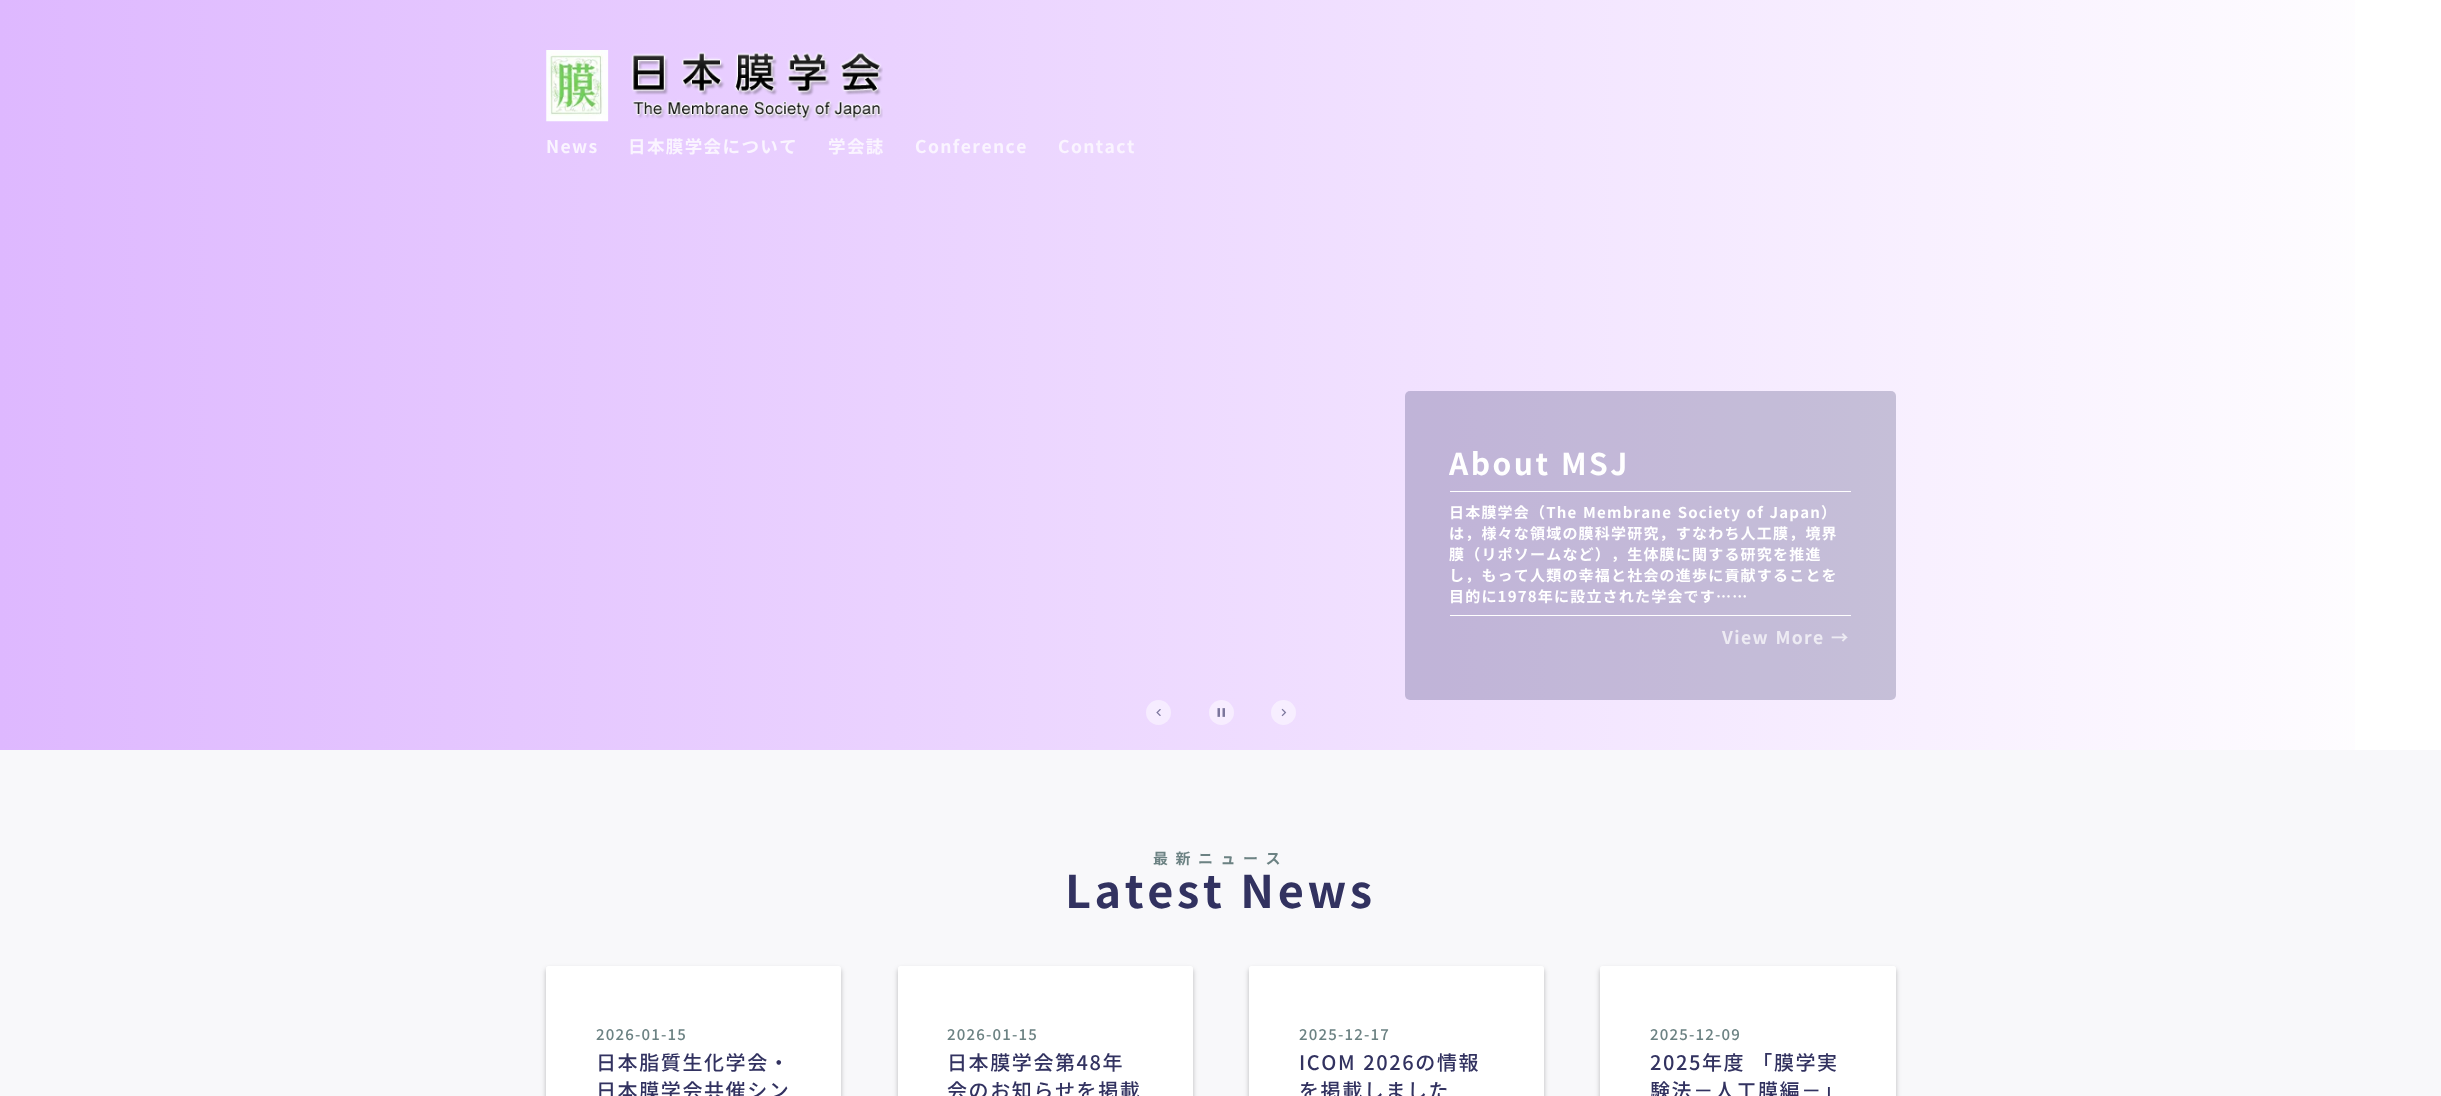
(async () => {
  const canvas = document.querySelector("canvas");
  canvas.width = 2441;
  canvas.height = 1096;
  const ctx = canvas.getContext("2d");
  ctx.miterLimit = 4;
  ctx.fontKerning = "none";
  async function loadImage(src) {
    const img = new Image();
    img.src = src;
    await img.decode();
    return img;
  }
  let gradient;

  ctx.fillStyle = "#ffffff";
  ctx.fillRect(0, 0, 2441, 1096);
  gradient = ctx.createLinearGradient(0, 375, 2441, 375);
  gradient.addColorStop(0, "#deb8ff");
  gradient.addColorStop(1, "#ffffff");
  ctx.fillStyle = gradient;
  ctx.fillRect(0, 0, 2355, 750);
  ctx.drawImage(await loadImage("img/1.png"), 546, 50, 337, 72);
  ctx.fillStyle = "rgba(1, 0, 58, 0.2)";
  ctx.beginPath();
  ctx.roundRect(1405, 391, 491, 309, 5);
  ctx.fill();
  ctx.fillStyle = "#ffffff";
  ctx.fillRect(1450, 491, 401, 1);
  ctx.fillRect(1450, 615, 401, 1);
  ctx.fillStyle = "#f6ecff";
  ctx.beginPath();
  ctx.arc(1158.5, 712.5, 12.5, 0, Math.PI * 2);
  ctx.fill();
  ctx.drawImage(await loadImage("img/2.png"), 1156, 709, 5, 7);
  ctx.fillStyle = "#f7edff";
  ctx.beginPath();
  ctx.arc(1221.5, 712.5, 12.5, 0, Math.PI * 2);
  ctx.fill();
  ctx.drawImage(await loadImage("img/3.png"), 1217, 708, 8, 9);
  ctx.fillStyle = "#f7eeff";
  ctx.beginPath();
  ctx.arc(1283.5, 712.5, 12.5, 0, Math.PI * 2);
  ctx.fill();
  ctx.drawImage(await loadImage("img/4.png"), 1281, 708, 6, 9);
  ctx.fillStyle = "#f8f8fa";
  ctx.fillRect(0, 750, 2441, 346);
  ctx.fillStyle = "rgba(0, 0, 0, 0.25)";
  ctx.filter = "blur(2.5px)";
  ctx.beginPath();
  ctx.roundRect(546, 969, 295, 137, 2.5);
  ctx.fill();
  ctx.filter = "none";
  ctx.fillStyle = "#ffffff";
  ctx.beginPath();
  ctx.roundRect(546, 966, 295, 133, 2.5);
  ctx.fill();
  ctx.fillStyle = "rgba(0, 0, 0, 0.25)";
  ctx.filter = "blur(2.5px)";
  ctx.beginPath();
  ctx.roundRect(898, 969, 295, 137, 2.5);
  ctx.fill();
  ctx.filter = "none";
  ctx.fillStyle = "#ffffff";
  ctx.beginPath();
  ctx.roundRect(898, 966, 295, 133, 2.5);
  ctx.fill();
  ctx.fillStyle = "rgba(0, 0, 0, 0.25)";
  ctx.filter = "blur(2.5px)";
  ctx.beginPath();
  ctx.roundRect(1249, 969, 295, 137, 2.5);
  ctx.fill();
  ctx.filter = "none";
  ctx.fillStyle = "#ffffff";
  ctx.beginPath();
  ctx.roundRect(1249, 966, 295, 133, 2.5);
  ctx.fill();
  ctx.fillStyle = "rgba(0, 0, 0, 0.25)";
  ctx.filter = "blur(2.5px)";
  ctx.beginPath();
  ctx.roundRect(1600, 969, 296, 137, 2.5);
  ctx.fill();
  ctx.filter = "none";
  ctx.fillStyle = "#ffffff";
  ctx.beginPath();
  ctx.roundRect(1600, 966, 296, 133, 2.5);
  ctx.fill();
  ctx.letterSpacing = "1.4px";
  ctx.font = "bold 17.5px Noto Sans JP";
  ctx.fillStyle = "#faf4ff";
  for (const [text, x, y] of [
    ["News", 546, 153],
    ["日本膜学会について", 628, 153],
    ["学会誌", 828, 153],
    ["Conference", 915, 153],
    ["Contact", 1058, 153],
  ]) {
    ctx.fillText(text, x, y);
  }
  ctx.letterSpacing = "2.5px";
  ctx.wordSpacing = "1px";
  ctx.font = "bold 30px Noto Sans JP";
  ctx.fillStyle = "#ffffff";
  ctx.fillText("About MSJ", 1449, 475);
  ctx.letterSpacing = "1.2px";
  ctx.font = "bold 15px Noto Sans JP";
  ctx.fillText("日本膜学会（The Membrane Society of Japan）", 1449, 518);
  ctx.wordSpacing = "0px";
  for (const [text, x, y] of [
    ["は，様々な領域の膜科学研究，すなわち人工膜，境界", 1449, 539],
    ["膜（リポソームなど）", 1449, 560],
    ["，生体膜に関する研究を推進", 1611, 560],
    ["し，もって人類の幸福と社会の進歩に貢献することを", 1449, 581],
    ["目的に1978年に設立された学会です……", 1449, 602],
  ]) {
    ctx.fillText(text, x, y);
  }
  ctx.letterSpacing = "1.4px";
  ctx.wordSpacing = "1px";
  ctx.font = "bold 17.5px Noto Sans JP";
  ctx.fillStyle = "#edebf3";
  ctx.fillText("View More →", 1722, 644);
  ctx.letterSpacing = "7.5px";
  ctx.wordSpacing = "0px";
  ctx.font = "bold 15px Noto Sans JP";
  ctx.fillStyle = "#6c8283";
  ctx.fillText("最新ニュース", 1153, 864);
  ctx.letterSpacing = "3.6px";
  ctx.wordSpacing = "1px";
  ctx.font = "bold 45px Noto Sans JP";
  ctx.fillStyle = "#323260";
  ctx.fillText("Latest News", 1065, 908);
  ctx.letterSpacing = "1.2px";
  ctx.wordSpacing = "0px";
  ctx.font = "500 15px Noto Sans JP";
  ctx.fillStyle = "#6c8283";
  ctx.fillText("2026-01-15", 596, 1040);
  ctx.letterSpacing = "1.6px";
  ctx.font = "500 20px Noto Sans JP";
  ctx.fillStyle = "#323260";
  ctx.fillText("日本脂質生化学会・", 596, 1070);
  ctx.fillText("日本膜学会共催シン", 596, 1098);
  ctx.letterSpacing = "1.2px";
  ctx.font = "500 15px Noto Sans JP";
  ctx.fillStyle = "#6c8283";
  ctx.fillText("2026-01-15", 947, 1040);
  ctx.letterSpacing = "1.6px";
  ctx.font = "500 20px Noto Sans JP";
  ctx.fillStyle = "#323260";
  ctx.fillText("日本膜学会第48年", 947, 1070);
  ctx.fillText("会のお知らせを掲載", 947, 1098);
  ctx.letterSpacing = "1.2px";
  ctx.font = "500 15px Noto Sans JP";
  ctx.fillStyle = "#6c8283";
  ctx.fillText("2025-12-17", 1299, 1040);
  ctx.letterSpacing = "1.6px";
  ctx.wordSpacing = "1px";
  ctx.font = "500 20px Noto Sans JP";
  ctx.fillStyle = "#323260";
  ctx.fillText("ICOM 2026の情報", 1299, 1070);
  ctx.wordSpacing = "0px";
  ctx.fillText("を掲載しました", 1299, 1098);
  ctx.letterSpacing = "1.2px";
  ctx.font = "500 15px Noto Sans JP";
  ctx.fillStyle = "#6c8283";
  ctx.fillText("2025-12-09", 1650, 1040);
  ctx.letterSpacing = "1.6px";
  ctx.wordSpacing = "1px";
  ctx.font = "500 20px Noto Sans JP";
  ctx.fillStyle = "#323260";
  ctx.fillText("2025年度 「膜学実", 1650, 1070);
  ctx.wordSpacing = "0px";
  ctx.fillText("験法－人工膜編－」", 1650, 1098);
})();
